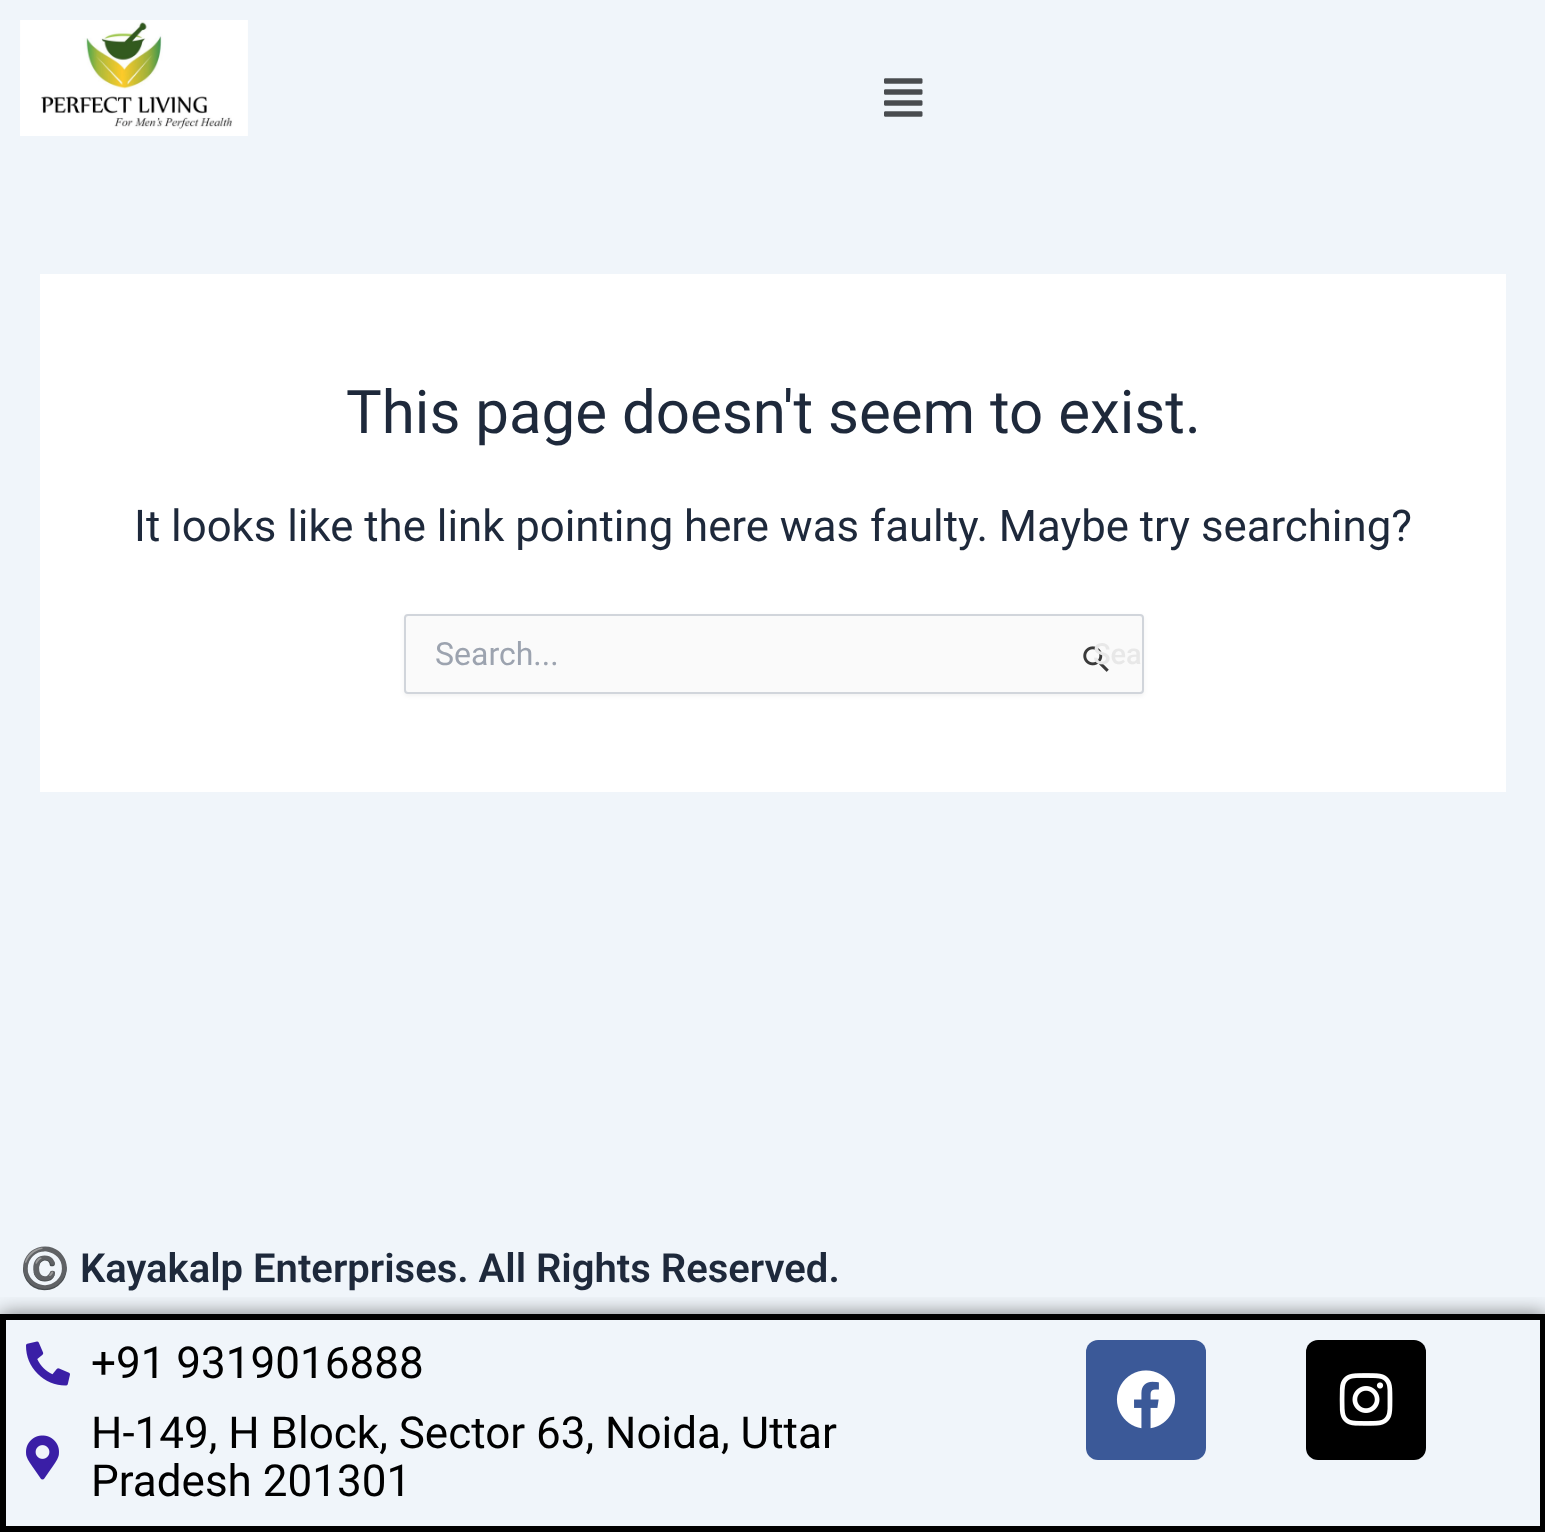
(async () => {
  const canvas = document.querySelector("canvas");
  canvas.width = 1545;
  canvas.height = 1532;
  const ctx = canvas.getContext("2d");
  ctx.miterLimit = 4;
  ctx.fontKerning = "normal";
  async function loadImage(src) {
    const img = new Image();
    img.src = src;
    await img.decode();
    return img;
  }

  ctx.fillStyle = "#f0f5fa";
  ctx.fillRect(0, 0, 1545, 1532);
  ctx.drawImage(await loadImage("img/1.png"), 20, 20, 228, 116);
  ctx.drawImage(await loadImage("img/2.png"), 884, 78, 39, 39);
  ctx.fillStyle = "#ffffff";
  ctx.fillRect(40, 274, 1466, 518);
  ctx.fillStyle = "rgba(0, 0, 0, 0.05)";
  ctx.filter = "blur(2px)";
  ctx.beginPath();
  ctx.roundRect(404, 616, 740, 80, 4);
  ctx.fill();
  ctx.filter = "none";
  ctx.fillStyle = "#fafafa";
  ctx.beginPath();
  ctx.roundRect(405, 615, 738, 78, 3);
  ctx.fill();
  ctx.strokeStyle = "#d1d5db";
  ctx.lineWidth = 2;
  ctx.stroke();
  ctx.drawImage(await loadImage("img/3.png"), 1083, 646, 26, 26);
  ctx.save();
  ctx.beginPath();
  ctx.rect(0, 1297, 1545, 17);
  ctx.clip();
  ctx.fillStyle = "rgba(0, 0, 0, 0.5)";
  ctx.filter = "blur(10px)";
  ctx.beginPath();
  ctx.rect(0, 1314, 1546, 218);
  ctx.fill();
  ctx.filter = "none";
  ctx.restore();
  ctx.strokeStyle = "#000000";
  ctx.lineWidth = 6;
  ctx.strokeRect(3, 1317, 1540, 212);
  ctx.drawImage(await loadImage("img/4.png"), 26, 1341, 44, 45);
  ctx.drawImage(await loadImage("img/5.png"), 26, 1435, 33, 45);
  ctx.fillStyle = "#3b5998";
  ctx.beginPath();
  ctx.roundRect(1086, 1340, 120, 120, 12);
  ctx.fill();
  ctx.drawImage(await loadImage("img/6.png"), 1116, 1370, 60, 59);
  ctx.fillStyle = "#000000";
  ctx.beginPath();
  ctx.roundRect(1306, 1340, 120, 120, 12);
  ctx.fill();
  ctx.drawImage(await loadImage("img/7.png"), 1339, 1373, 54, 53);
  ctx.font = "60px Roboto";
  ctx.fillStyle = "#1e293b";
  ctx.fillText("This page doesn't seem to exist.", 346, 433);
  ctx.font = "43.75px Roboto";
  ctx.fillText("It looks like the link pointing here was faulty. Maybe try searching?", 134, 541);
  ctx.font = "32px Roboto";
  ctx.fillStyle = "#9ca3af";
  ctx.fillText("Search...", 435, 665);
  ctx.font = "500 29px Roboto";
  ctx.fillStyle = "#e8e8e8";
  ctx.fillText("Sea", 1093, 664);
  ctx.font = "bold 40px Noto Color Emoji";
  ctx.fillStyle = "#1e293b";
  ctx.fillText("©️", 20, 1282);
  ctx.font = "600 40px Roboto";
  ctx.fillText("Kayakalp Enterprises. All Rights Reserved.", 80, 1282);
  ctx.font = "44px Roboto";
  ctx.fillStyle = "#000000";
  for (const [text, x, y] of [
    ["+91 9319016888", 91, 1378],
    ["H-149, H Block, Sector 63, Noida, Uttar", 91, 1448],
    ["Pradesh 201301", 91, 1496],
  ]) {
    ctx.fillText(text, x, y);
  }
})();
